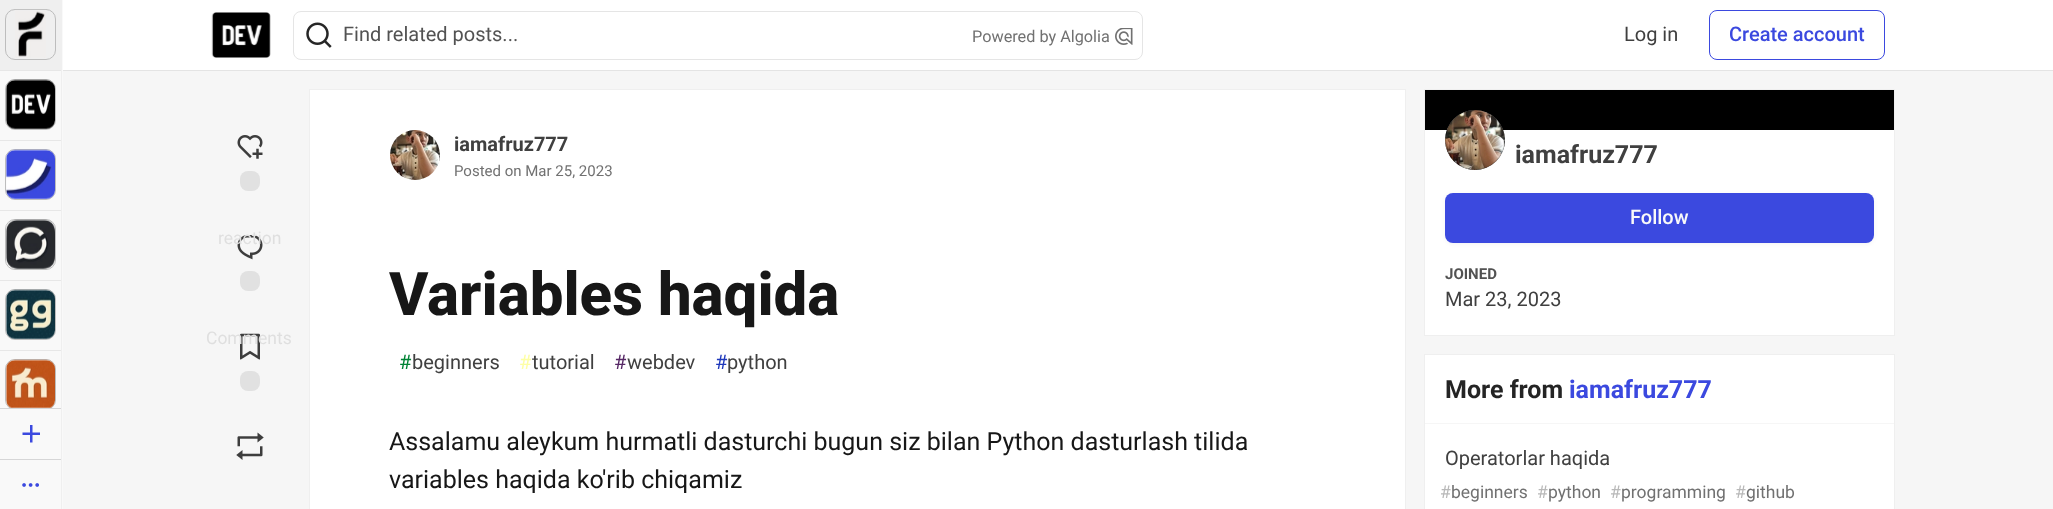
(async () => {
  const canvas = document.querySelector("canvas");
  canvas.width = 2053;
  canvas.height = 509;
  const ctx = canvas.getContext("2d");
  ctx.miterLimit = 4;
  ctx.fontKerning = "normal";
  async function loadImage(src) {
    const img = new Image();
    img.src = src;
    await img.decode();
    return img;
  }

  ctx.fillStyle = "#f6f6f6";
  ctx.fillRect(0, 0, 2053, 509);
  ctx.fillStyle = "rgba(0, 0, 0, 0.07)";
  ctx.filter = "blur(0.5px)";
  ctx.beginPath();
  ctx.rect(0, 1, 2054, 70);
  ctx.fill();
  ctx.filter = "none";
  for (const [x, y, w, h, color] of [
    [0, 0, 63, 509, "#f9f9f9"],
    [61, 0, 1, 509, "#efefef"],
    [63, 0, 1990, 70, "#ffffff"],
  ]) {
    ctx.fillStyle = color;
    ctx.fillRect(x, y, w, h);
  }
  ctx.fillStyle = "rgba(0, 0, 0, 0.07)";
  ctx.filter = "blur(0.5px)";
  ctx.beginPath();
  ctx.rect(0, 1, 61, 70);
  ctx.fill();
  ctx.filter = "none";
  ctx.fillStyle = "#efefef";
  ctx.fillRect(0, 0, 61, 70);
  ctx.beginPath();
  ctx.roundRect(5.5, 9.5, 50, 50, 9.5);
  ctx.strokeStyle = "#bdbdbd";
  ctx.stroke();
  ctx.drawImage(await loadImage("img/1.png"), 15, 9, 31, 49);
  ctx.save();
  ctx.beginPath();
  ctx.rect(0, 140, 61, 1);
  ctx.clip();
  ctx.fillStyle = "rgba(0, 0, 0, 0.07)";
  ctx.filter = "blur(0.5px)";
  ctx.beginPath();
  ctx.rect(0, 71, 61, 70);
  ctx.fill();
  ctx.filter = "none";
  ctx.restore();
  ctx.beginPath();
  ctx.roundRect(5.5, 79.5, 50, 50, 9.5);
  ctx.stroke();
  ctx.drawImage(await loadImage("img/2.png"), 6, 79, 49, 50);
  ctx.save();
  ctx.beginPath();
  ctx.rect(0, 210, 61, 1);
  ctx.clip();
  ctx.fillStyle = "rgba(0, 0, 0, 0.07)";
  ctx.filter = "blur(0.5px)";
  ctx.beginPath();
  ctx.rect(0, 141, 61, 70);
  ctx.fill();
  ctx.filter = "none";
  ctx.restore();
  ctx.beginPath();
  ctx.roundRect(5.5, 149.5, 50, 50, 9.5);
  ctx.stroke();
  ctx.drawImage(await loadImage("img/3.png"), 6, 149, 49, 50);
  ctx.save();
  ctx.beginPath();
  ctx.rect(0, 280, 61, 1);
  ctx.clip();
  ctx.fillStyle = "rgba(0, 0, 0, 0.07)";
  ctx.filter = "blur(0.5px)";
  ctx.beginPath();
  ctx.rect(0, 211, 61, 70);
  ctx.fill();
  ctx.filter = "none";
  ctx.restore();
  ctx.beginPath();
  ctx.roundRect(5.5, 219.5, 50, 50, 9.5);
  ctx.stroke();
  ctx.drawImage(await loadImage("img/4.png"), 6, 219, 49, 50);
  ctx.save();
  ctx.beginPath();
  ctx.rect(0, 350, 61, 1);
  ctx.clip();
  ctx.fillStyle = "rgba(0, 0, 0, 0.07)";
  ctx.filter = "blur(0.5px)";
  ctx.beginPath();
  ctx.rect(0, 281, 61, 70);
  ctx.fill();
  ctx.filter = "none";
  ctx.restore();
  ctx.beginPath();
  ctx.roundRect(5.5, 289.5, 50, 50, 9.5);
  ctx.stroke();
  ctx.drawImage(await loadImage("img/5.png"), 6, 289, 49, 50);
  ctx.save();
  ctx.beginPath();
  ctx.rect(0, 0, 61, 408);
  ctx.clip();
  ctx.beginPath();
  ctx.roundRect(5.5, 359.5, 50, 50, 9.5);
  ctx.stroke();
  ctx.restore();
  ctx.drawImage(await loadImage("img/6.png"), 6, 359, 49, 49);
  ctx.fillStyle = "#d6d6d7";
  ctx.fillRect(0, 408, 61, 1);
  ctx.drawImage(await loadImage("img/7.png"), 22, 425, 18, 18);
  ctx.fillRect(0, 459, 61, 1);
  ctx.drawImage(await loadImage("img/8.png"), 22, 483, 17, 4);
  ctx.drawImage(await loadImage("img/9.png"), 211, 12, 60, 46);
  ctx.beginPath();
  ctx.roundRect(293.5, 11.5, 849, 48, 7.5);
  ctx.strokeStyle = "#e5e5e5";
  ctx.stroke();
  ctx.drawImage(await loadImage("img/10.png"), 306, 22, 26, 26);
  ctx.drawImage(await loadImage("img/11.png"), 1115, 28, 18, 17);
  ctx.beginPath();
  ctx.roundRect(1709.5, 10.5, 175, 49, 7.5);
  ctx.strokeStyle = "#3b49df";
  ctx.stroke();
  ctx.drawImage(await loadImage("img/12.png"), 237, 135, 26, 24);
  ctx.fillStyle = "#e1e1e1";
  ctx.beginPath();
  ctx.roundRect(240, 171, 20, 20, 8);
  ctx.fill();
  ctx.drawImage(await loadImage("img/13.png"), 237, 235, 26, 25);
  ctx.beginPath();
  ctx.roundRect(240, 271, 20, 20, 8);
  ctx.fill();
  ctx.drawImage(await loadImage("img/14.png"), 240, 333, 20, 27);
  ctx.beginPath();
  ctx.roundRect(240, 371, 20, 20, 8);
  ctx.fill();
  ctx.drawImage(await loadImage("img/15.png"), 236, 432, 28, 28);
  ctx.strokeStyle = "#efefef";
  ctx.strokeRect(309.5, 89.5, 1096, 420);
  ctx.fillStyle = "#ffffff";
  ctx.fillRect(310, 90, 1095, 419);
  ctx.drawImage(await loadImage("img/16.png"), 390, 130, 50, 50);
  ctx.strokeRect(1424.5, 89.5, 470, 246);
  ctx.fillRect(1425, 130, 469, 205);
  ctx.fillStyle = "#000000";
  ctx.fillRect(1425, 90, 469, 40);
  ctx.fillStyle = "#525252";
  ctx.beginPath();
  ctx.arc(1475, 140, 30, 0, Math.PI * 2);
  ctx.fill();
  ctx.drawImage(await loadImage("img/17.png"), 1445, 110, 60, 60);
  ctx.beginPath();
  ctx.arc(1475, 140, 29.5, 0, Math.PI * 2);
  ctx.strokeStyle = "rgba(23, 23, 23, 0.15)";
  ctx.stroke();
  ctx.fillStyle = "rgba(0, 0, 0, 0.05)";
  ctx.filter = "blur(2px)";
  ctx.beginPath();
  ctx.roundRect(1445, 194, 429, 50, 8);
  ctx.fill();
  ctx.filter = "none";
  ctx.fillStyle = "#3b49df";
  ctx.beginPath();
  ctx.roundRect(1445, 193, 429, 50, 8);
  ctx.fill();
  ctx.strokeStyle = "#efefef";
  ctx.strokeRect(1424.5, 354.5, 470, 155);
  ctx.fillStyle = "#ffffff";
  ctx.fillRect(1425, 355, 469, 154);
  ctx.fillStyle = "#f6f6f6";
  ctx.fillRect(1425, 423, 469, 1);
  ctx.font = "20px Roboto";
  ctx.fillStyle = "#525252";
  ctx.fillText("Find related posts...", 343, 41);
  ctx.font = "16.25px Roboto";
  ctx.fillStyle = "#717171";
  ctx.fillText("Powered by Algolia", 972, 42);
  ctx.font = "20px Roboto";
  ctx.fillStyle = "#404040";
  ctx.fillText("Log in", 1624, 41);
  ctx.font = "500 20px Roboto";
  ctx.fillStyle = "#3b49df";
  ctx.fillText("Create account", 1729, 41);
  ctx.font = "17.5px Roboto";
  ctx.fillStyle = "#dfdfdf";
  ctx.fillText("reaction", 218, 244);
  ctx.fillText("Comments", 206, 344);
  ctx.font = "bold 20px Roboto";
  ctx.fillStyle = "#404040";
  ctx.fillText("iamafruz777", 454, 151);
  ctx.font = "15px Roboto";
  ctx.fillStyle = "#717171";
  ctx.fillText("Posted on Mar 25, 2023", 454, 176);
  ctx.font = "800 60px Roboto";
  ctx.fillStyle = "#171717";
  ctx.fillText("Variables haqida", 389, 315);
  ctx.font = "20px Roboto";
  ctx.fillStyle = "#008335";
  ctx.fillText("#", 399, 369);
  ctx.fillStyle = "#404040";
  ctx.fillText("beginners", 412, 369);
  ctx.fillStyle = "#feffa5";
  ctx.fillText("#", 519, 369);
  ctx.fillStyle = "#404040";
  ctx.fillText("tutorial", 532, 369);
  ctx.fillStyle = "#562765";
  ctx.fillText("#", 614, 369);
  ctx.fillStyle = "#404040";
  ctx.fillText("webdev", 627, 369);
  ctx.fillStyle = "#1e38bb";
  ctx.fillText("#", 715, 369);
  ctx.fillStyle = "#404040";
  ctx.fillText("python", 727, 369);
  ctx.font = "25px Roboto";
  ctx.fillStyle = "#171717";
  ctx.fillText("Assalamu aleykum hurmatli dasturchi bugun siz bilan Python dasturlash tilida", 389, 450);
  ctx.fillText("variables haqida ko'rib chiqamiz", 389, 488);
  ctx.font = "bold 25px Roboto";
  ctx.fillStyle = "#404040";
  ctx.fillText("iamafruz777", 1515, 163);
  ctx.font = "500 20px Roboto";
  ctx.fillStyle = "#f9f9f9";
  ctx.fillText("Follow", 1630, 224);
  ctx.font = "bold 15px Roboto";
  ctx.fillStyle = "#525252";
  ctx.fillText("JOINED", 1445, 279);
  ctx.font = "20px Roboto";
  ctx.fillStyle = "#404040";
  ctx.fillText("Mar 23, 2023", 1445, 306);
  ctx.font = "bold 25px Roboto";
  ctx.fillStyle = "#242424";
  ctx.fillText("More from", 1445, 398);
  ctx.fillStyle = "#3b49df";
  ctx.fillText("iamafruz777", 1569, 398);
  ctx.font = "20px Roboto";
  ctx.fillStyle = "#404040";
  ctx.fillText("Operatorlar haqida", 1445, 465);
  ctx.font = "17.5px Roboto";
  ctx.fillStyle = "#b8b8b8";
  ctx.fillText("#", 1440, 498);
  ctx.fillStyle = "#717171";
  ctx.fillText("beginners", 1451, 498);
  ctx.fillStyle = "#b8b8b8";
  ctx.fillText("#", 1537, 498);
  ctx.fillStyle = "#717171";
  ctx.fillText("python", 1548, 498);
  ctx.fillStyle = "#b8b8b8";
  ctx.fillText("#", 1610, 498);
  ctx.fillStyle = "#717171";
  ctx.fillText("programming", 1621, 498);
  ctx.fillStyle = "#b8b8b8";
  ctx.fillText("#", 1735, 498);
  ctx.fillStyle = "#717171";
  ctx.fillText("github", 1746, 498);
})();
